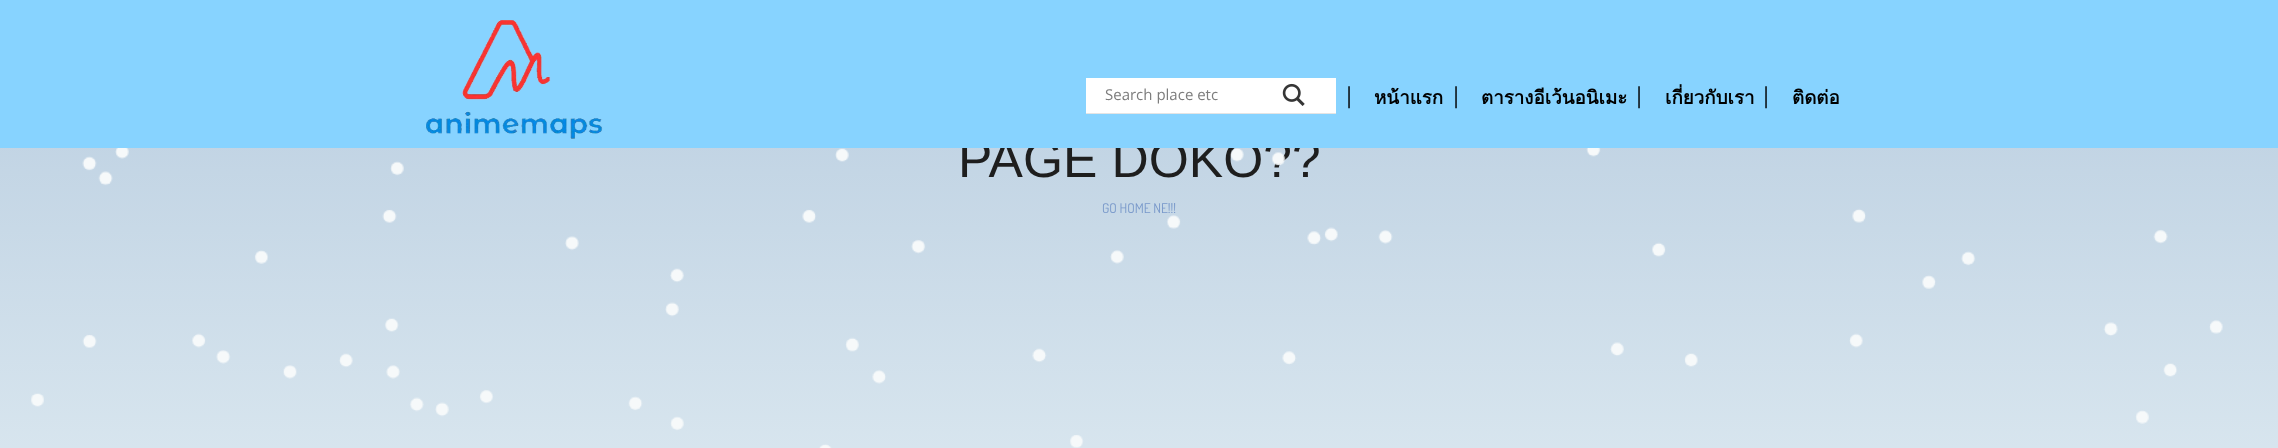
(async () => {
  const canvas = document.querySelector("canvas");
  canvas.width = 2278;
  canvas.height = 448;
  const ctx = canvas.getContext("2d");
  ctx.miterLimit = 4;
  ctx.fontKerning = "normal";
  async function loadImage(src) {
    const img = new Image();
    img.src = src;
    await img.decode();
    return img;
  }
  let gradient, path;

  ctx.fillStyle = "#ffffff";
  ctx.fillRect(0, 0, 2278, 448);
  gradient = ctx.createLinearGradient(1139, 42, 1139, 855);
  gradient.addColorStop(0, "#bbcfe1");
  gradient.addColorStop(0.8, "#e8f2f6");
  ctx.fillStyle = gradient;
  ctx.fillRect(0, 148, 2278, 300);
  ctx.font = "51.5px Liberation Sans";
  ctx.fillStyle = "#1e1e1e";
  ctx.fillText("PAGE DOKO??", 958, 177);
  ctx.fillStyle = "#87d3ff";
  ctx.fillRect(0, 0, 2278, 148);
  ctx.fillStyle = "#e4e4e4";
  path = new Path2D("M1086 79V114H1336V112H1086Z");
  ctx.fill(path);
  ctx.fillStyle = "#ffffff";
  ctx.fillRect(1086, 78, 250, 35);
  ctx.drawImage(await loadImage("img/2.png"), 1282, 83, 23, 23);
  ctx.font = "15px Open Sans";
  ctx.fillStyle = "#7d7d7d";
  ctx.fillText("Search place etc", 1105, 100);
  ctx.font = "bold 18.75px Loma";
  ctx.fillStyle = "#000000";
  ctx.fillText("ติดต่อ", 1792, 104);
  ctx.font = "22px Open Sans";
  ctx.fillText("|", 1760, 103);
  ctx.font = "bold 18.75px Loma";
  ctx.fillText("เกี่ยวกับเรา", 1665, 104);
  ctx.font = "22px Open Sans";
  ctx.fillText("|", 1633, 103);
  ctx.font = "bold 18.75px Loma";
  ctx.fillText("ตารางอีเว้นอนิเมะ", 1481, 104);
  ctx.font = "22px Open Sans";
  ctx.fillText("|", 1450, 103);
  ctx.font = "bold 18.75px Loma";
  ctx.fillText("หน้าแรก", 1374, 104);
  ctx.font = "22px Open Sans";
  ctx.fillText("|", 1343, 103);
  ctx.drawImage(await loadImage("img/1.png"), 425, 20, 178, 119);
  ctx.font = "13.5px Dosis";
  ctx.fillStyle = "#7898ca";
  ctx.fillText("GO HOME NE!!!", 1102, 213);
  ctx.drawImage(await loadImage("img/3.png"), 31, 148, 2192, 300);
})();
